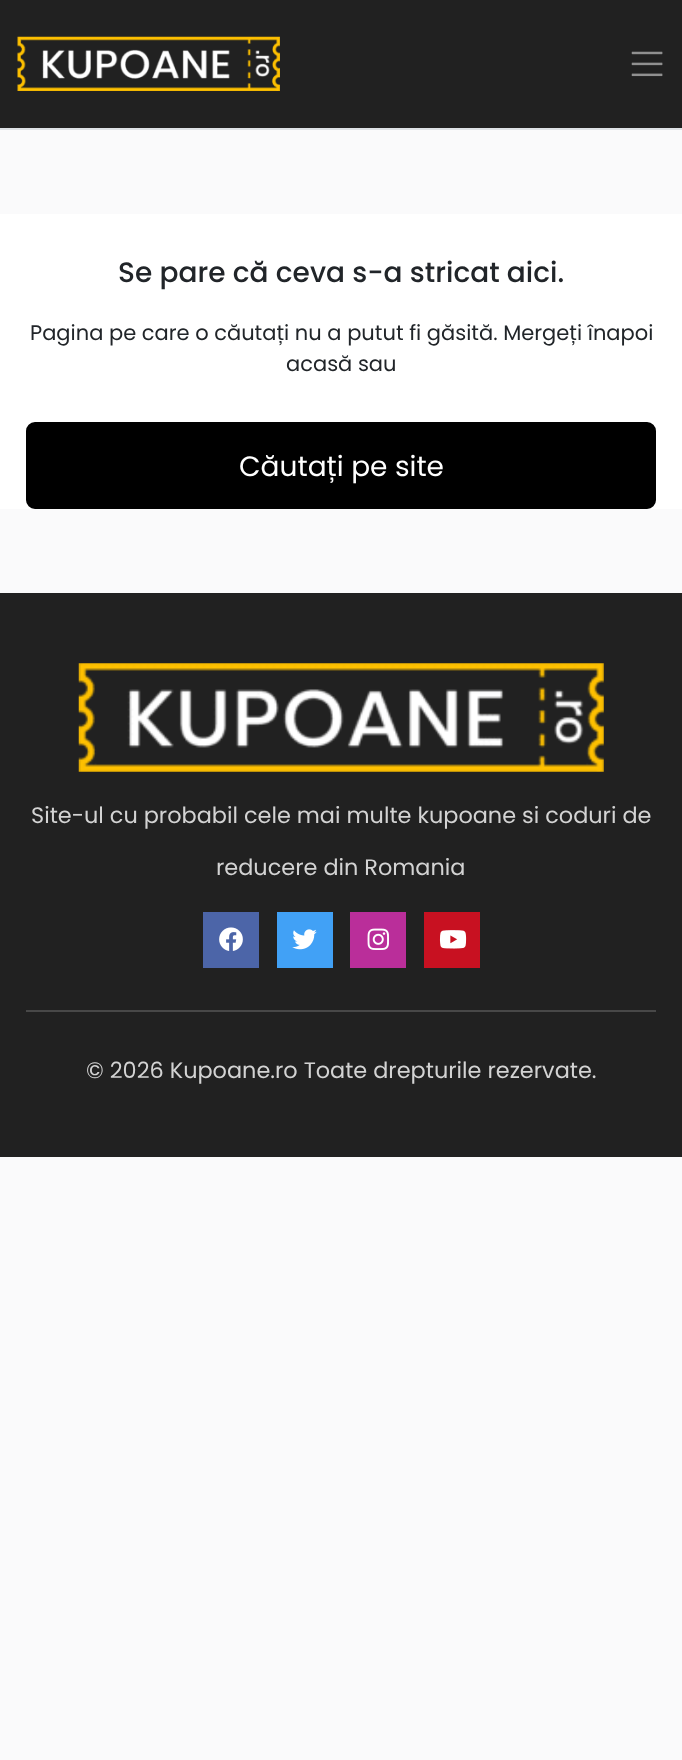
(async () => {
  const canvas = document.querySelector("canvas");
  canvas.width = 682;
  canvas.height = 1760;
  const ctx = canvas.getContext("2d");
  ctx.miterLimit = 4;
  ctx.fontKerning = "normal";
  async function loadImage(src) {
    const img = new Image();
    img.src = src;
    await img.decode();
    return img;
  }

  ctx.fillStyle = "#fafafb";
  ctx.fillRect(0, 0, 682, 1760);
  ctx.fillStyle = "#212121";
  ctx.fillRect(0, 0, 682, 128);
  ctx.fillStyle = "#dee2e6";
  ctx.fillRect(0, 128, 682, 2);
  ctx.drawImage(await loadImage("img/1.png"), 17, 36, 263, 55);
  ctx.drawImage(await loadImage("img/2.png"), 631, 51, 32, 26);
  ctx.fillStyle = "#ffffff";
  ctx.fillRect(0, 214, 682, 295);
  ctx.fillStyle = "#000000";
  ctx.beginPath();
  ctx.roundRect(27, 423, 628, 85, 8);
  ctx.fill();
  ctx.strokeStyle = "#000000";
  ctx.lineWidth = 2;
  ctx.stroke();
  ctx.fillStyle = "#212121";
  ctx.fillRect(0, 593, 682, 564);
  ctx.drawImage(await loadImage("img/3.png"), 78, 663, 526, 109);
  ctx.fillStyle = "#4c65a8";
  ctx.fillRect(203, 912, 56, 56);
  ctx.drawImage(await loadImage("img/4.png"), 219, 927, 24, 24);
  ctx.fillStyle = "#41a1f6";
  ctx.fillRect(277, 912, 56, 56);
  ctx.drawImage(await loadImage("img/5.png"), 292, 929, 25, 21);
  ctx.fillStyle = "#ba2e9a";
  ctx.fillRect(350, 912, 56, 56);
  ctx.drawImage(await loadImage("img/6.png"), 367, 928, 22, 22);
  ctx.fillStyle = "#c81121";
  ctx.fillRect(424, 912, 56, 56);
  ctx.drawImage(await loadImage("img/7.png"), 439, 930, 28, 19);
  ctx.fillStyle = "#484848";
  ctx.fillRect(26, 1010, 630, 2);
  ctx.font = "500 28px Poppins";
  ctx.fillStyle = "#212529";
  ctx.fillText("Se pare că ceva s-a stricat aici.", 118, 282);
  ctx.font = "21px Poppins";
  ctx.fillText("Pagina pe care o căutați nu a putut fi găsită. Mergeți înapoi", 30, 340);
  ctx.fillText("acasă sau", 286, 371);
  ctx.font = "28px Poppins";
  ctx.fillStyle = "#ffffff";
  ctx.fillText("Căutați pe site", 239, 476);
  ctx.font = "22.4px Poppins";
  ctx.fillStyle = "#d3d3d3";
  for (const [text, x, y] of [
    ["Site-ul cu probabil cele mai multe kupoane si coduri de", 31, 823],
    ["reducere din Romania", 216, 875],
    ["© 2026 Kupoane.ro Toate drepturile rezervate.", 86, 1078],
  ]) {
    ctx.fillText(text, x, y);
  }
})();
